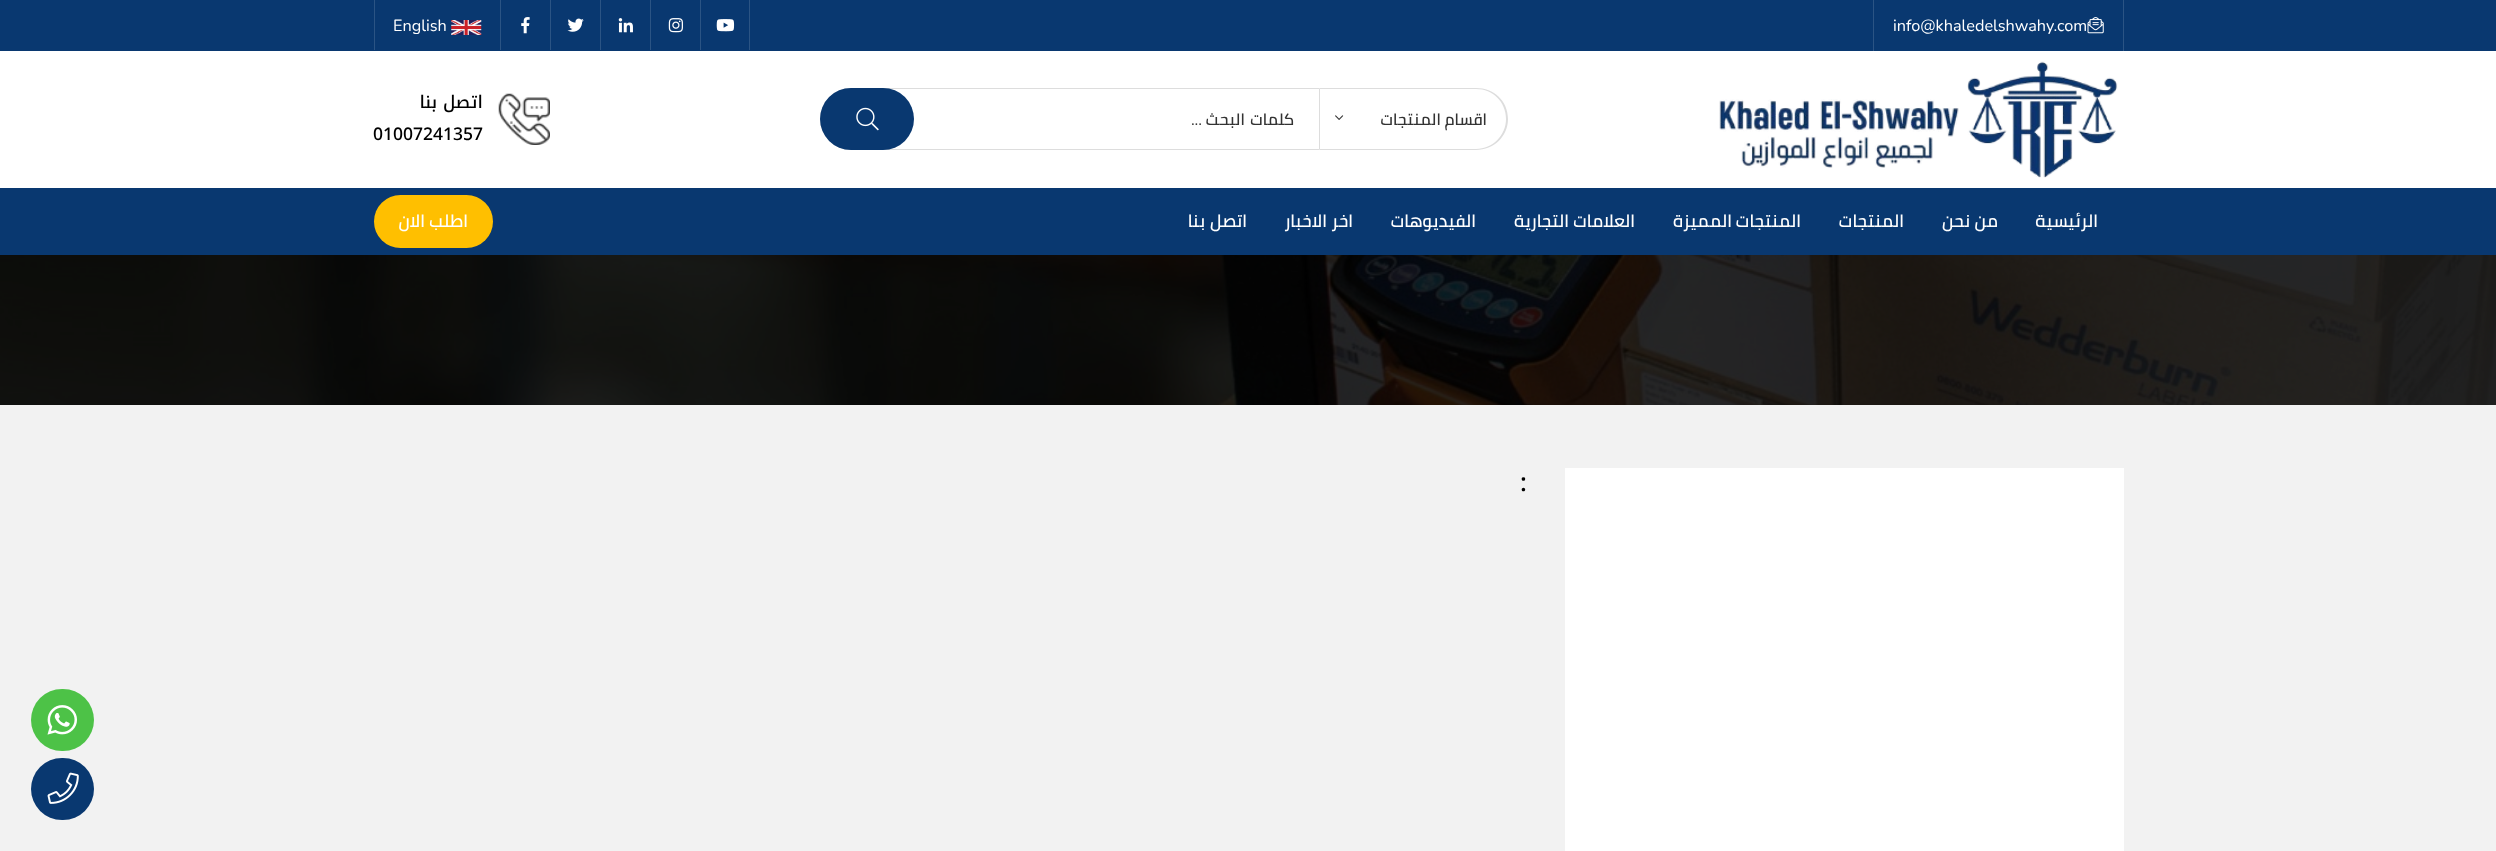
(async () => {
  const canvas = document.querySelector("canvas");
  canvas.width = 2496;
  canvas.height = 851;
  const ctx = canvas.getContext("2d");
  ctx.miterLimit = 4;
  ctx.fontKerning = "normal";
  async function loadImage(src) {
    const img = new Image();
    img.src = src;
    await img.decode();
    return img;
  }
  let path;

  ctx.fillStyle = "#ffffff";
  ctx.fillRect(0, 0, 2496, 851);
  for (const [x, y, w, h, color] of [
    [0, 0, 2496, 51, "#093870"],
    [2123, 0, 1, 51, "#2b5484"],
    [1873, 0, 1, 51, "#2b5484"],
  ]) {
    ctx.fillStyle = color;
    ctx.fillRect(x, y, w, h);
  }
  ctx.drawImage(await loadImage("img/1.png"), 2087, 17, 17, 17);
  ctx.fillRect(749, 0, 1, 50);
  ctx.fillRect(700, 0, 1, 50);
  ctx.drawImage(await loadImage("img/2.png"), 716, 19, 19, 13);
  ctx.fillRect(650, 0, 1, 50);
  ctx.drawImage(await loadImage("img/3.png"), 668, 18, 15, 15);
  ctx.fillRect(600, 0, 1, 50);
  ctx.drawImage(await loadImage("img/4.png"), 618, 18, 15, 15);
  ctx.fillRect(550, 0, 1, 50);
  ctx.drawImage(await loadImage("img/5.png"), 567, 18, 17, 14);
  ctx.fillRect(500, 0, 1, 50);
  ctx.drawImage(await loadImage("img/6.png"), 521, 17, 9, 17);
  ctx.fillRect(374, 0, 1, 50);
  ctx.drawImage(await loadImage("img/7.png"), 451, 20, 31, 15);
  ctx.drawImage(await loadImage("img/8.png"), 1719, 61, 399, 117);
  ctx.fillStyle = "#dddddd";
  path = new Path2D("M1320 88H1476C1494 88 1508 101 1508 119C1508 136 1494 150 1476 150H1320ZM1320 89H1476C1493 89 1506 102 1506 119C1506 135 1493 149 1476 149H1320Z");
  ctx.fill(path, "evenodd");
  ctx.drawImage(await loadImage("img/9.png"), 1335, 115, 9, 5);
  ctx.beginPath();
  ctx.roundRect(820.5, 88.5, 499, 61, [30.5, 0, 0, 30.5]);
  ctx.strokeStyle = "#dddddd";
  ctx.stroke();
  ctx.fillStyle = "#093870";
  ctx.beginPath();
  ctx.roundRect(820, 88, 94, 62, 31);
  ctx.fill();
  ctx.drawImage(await loadImage("img/10.png"), 856, 107, 23, 24);
  ctx.drawImage(await loadImage("img/11.png"), 498, 93, 52, 52);
  ctx.fillRect(0, 188, 2496, 67);
  ctx.fillStyle = "#ffbf00";
  ctx.beginPath();
  ctx.roundRect(374, 195, 119, 53, 26.5);
  ctx.fill();
  ctx.fillStyle = "#f2f2f2";
  ctx.fillRect(0, 405, 2496, 446);
  ctx.drawImage(await loadImage("img/12.png"), 0, 255, 2496, 150);
  ctx.fillStyle = "#ffffff";
  ctx.fillRect(1565, 468, 559, 383);
  ctx.fillStyle = "#4dc247";
  ctx.beginPath();
  ctx.roundRect(31, 689, 63, 62, 31);
  ctx.fill();
  ctx.drawImage(await loadImage("img/13.png"), 47, 705, 30, 30);
  ctx.fillStyle = "#093870";
  ctx.beginPath();
  ctx.roundRect(31, 758, 63, 62, 31);
  ctx.fill();
  ctx.drawImage(await loadImage("img/14.png"), 47, 772, 32, 32);
  ctx.font = "16.25px Nunito";
  ctx.fillStyle = "#ffffff";
  ctx.fillText("info@khaledelshwahy.com", 1893, 31);
  ctx.fillText("English", 393, 31);
  ctx.direction = "rtl";
  ctx.font = "600 16.25px Cairo";
  ctx.fillStyle = "#333333";
  for (const [text, x, y] of [
    ["اقسام", 1487, 125],
    ["المنتجات", 1441, 125],
    ["كلمات", 1294, 125],
    ["البحث", 1245, 125],
  ]) {
    ctx.fillText(text, x, y);
  }
  ctx.font = "16.25px Nunito";
  ctx.fillText("...", 1202, 125);
  ctx.font = "500 17.5px Noto Kufi Arabic";
  ctx.fillStyle = "#000000";
  ctx.fillText("اتصل بنا", 483, 108);
  ctx.direction = "ltr";
  ctx.fillText("01007241357", 373, 140);
  ctx.direction = "rtl";
  ctx.font = "600 17.5px Cairo";
  ctx.fillStyle = "#ffffff";
  for (const [text, x, y] of [
    ["الرئيسية", 2098, 227],
    ["من", 1998, 227],
    ["نحن", 1970, 227],
    ["المنتجات", 1904, 227],
    ["المنتجات", 1801, 227],
    ["المميزة", 1732, 227],
    ["العلامات", 1635, 227],
    ["التجارية", 1569, 227],
    ["الفيديوهات", 1476, 227],
    ["اخر", 1353, 227],
    ["الاخبار", 1327, 227],
    ["اتصل", 1247, 227],
    ["بنا", 1205, 227],
    ["اطلب", 468, 227],
    ["الان", 425, 227],
  ]) {
    ctx.fillText(text, x, y);
  }
  ctx.direction = "ltr";
  ctx.font = "500 25px Noto Kufi Arabic";
  ctx.fillStyle = "#000000";
  ctx.fillText(":", 1520, 491);
})();
